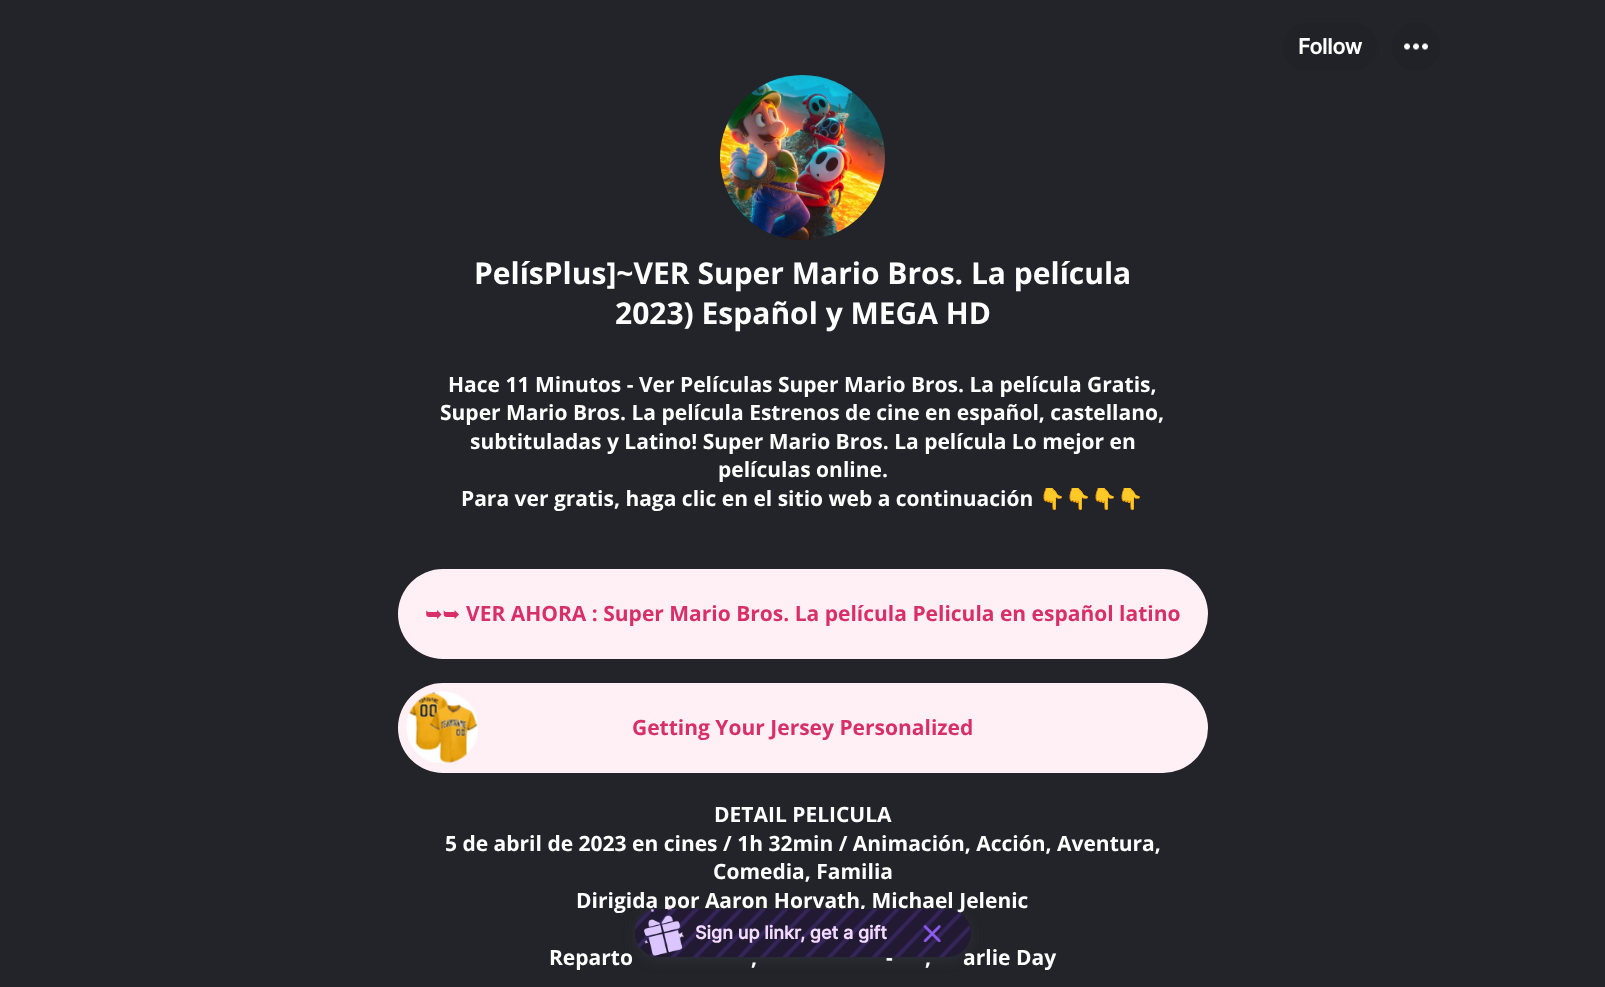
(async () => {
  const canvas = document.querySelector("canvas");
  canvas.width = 1605;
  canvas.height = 987;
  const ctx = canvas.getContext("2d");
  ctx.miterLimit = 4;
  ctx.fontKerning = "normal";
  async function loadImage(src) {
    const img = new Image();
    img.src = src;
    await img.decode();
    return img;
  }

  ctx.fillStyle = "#232429";
  ctx.fillRect(0, 0, 1605, 987);
  ctx.fillStyle = "#202227";
  ctx.beginPath();
  ctx.roundRect(1283, 23, 94, 48, 24);
  ctx.fill();
  ctx.beginPath();
  ctx.arc(1416, 47, 24, 0, Math.PI * 2);
  ctx.fill();
  ctx.drawImage(await loadImage("img/1.png"), 1404, 43, 24, 7);
  ctx.drawImage(await loadImage("img/2.png"), 720, 75, 165, 165);
  ctx.fillStyle = "#fff0f6";
  ctx.beginPath();
  ctx.roundRect(398, 569, 810, 90, 45);
  ctx.fill();
  ctx.beginPath();
  ctx.roundRect(398, 683, 810, 90, 45);
  ctx.fill();
  ctx.drawImage(await loadImage("img/3.png"), 406, 691, 73, 73);
  ctx.fillStyle = "rgba(52, 59, 70, 0.5)";
  ctx.filter = "blur(6px)";
  ctx.beginPath();
  ctx.roundRect(635, 912, 336, 48, 24);
  ctx.fill();
  ctx.filter = "none";
  ctx.font = "bold 21px Inter";
  ctx.fillStyle = "#ffffff";
  ctx.fillText("Follow", 1298, 54);
  ctx.font = "bold 30px Open Sans";
  ctx.fillText("PelísPlus]~VER Super Mario Bros. La película", 474, 284);
  ctx.fillText("2023) Español y MEGA HD", 615, 324);
  ctx.font = "bold 21px Open Sans";
  for (const [text, x, y] of [
    ["Hace 11 Minutos - Ver Películas Super Mario Bros. La película Gratis,", 448, 392],
    ["Super Mario Bros. La película Estrenos de cine en español, castellano,", 440, 420],
    ["subtituladas y Latino! Super Mario Bros. La película Lo mejor en", 470, 449],
    ["películas online.", 718, 477],
    ["Para ver gratis, haga clic en el sitio web a continuación", 461, 506],
  ]) {
    ctx.fillText(text, x, y);
  }
  ctx.font = "21px Noto Color Emoji";
  ctx.fillText("👇👇👇👇", 1039, 506);
  ctx.font = "21px DejaVu Sans";
  ctx.fillStyle = "#d92f68";
  ctx.fillText("➥➥", 425, 621);
  ctx.font = "bold 21px Open Sans";
  ctx.fillText("VER AHORA : Super Mario Bros. La película Pelicula en español latino", 466, 621);
  ctx.fillText("Getting Your Jersey Personalized", 632, 735);
  ctx.fillStyle = "#ffffff";
  for (const [text, x, y] of [
    ["DETAIL PELICULA", 714, 822],
    ["5 de abril de 2023 en cines / 1h 32min / Animación, Acción, Aventura,", 445, 851],
    ["Comedia, Familia", 713, 879],
    ["Dirigida por Aaron Horvath, Michael Jelenic", 576, 908],
    ["Reparto", 549, 965],
    ["-", 886, 965],
    ["arlie Day", 963, 965],
    [",", 751, 965],
    [",", 925, 965],
  ]) {
    ctx.fillText(text, x, y);
  }
  ctx.fillStyle = "#211a32";
  ctx.beginPath();
  ctx.roundRect(635, 909, 336, 48, 24);
  ctx.fill();
  ctx.drawImage(await loadImage("img/4.png"), 635, 909, 335, 48);
  ctx.drawImage(await loadImage("img/5.png"), 644, 905, 40, 39);
  ctx.drawImage(await loadImage("img/6.png"), 644, 915, 39, 41);
  ctx.font = "bold 18px Inter";
  ctx.fillStyle = "#f3daff";
  ctx.fillText("Sign up linkr, get a gift", 695, 939);
  ctx.drawImage(await loadImage("img/7.png"), 923, 924, 18, 18);
})();
